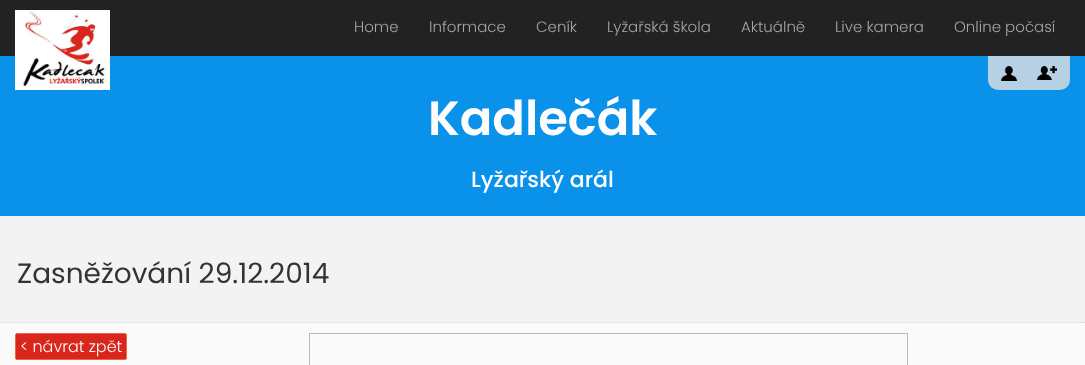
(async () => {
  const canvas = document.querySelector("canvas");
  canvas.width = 1085;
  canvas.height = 365;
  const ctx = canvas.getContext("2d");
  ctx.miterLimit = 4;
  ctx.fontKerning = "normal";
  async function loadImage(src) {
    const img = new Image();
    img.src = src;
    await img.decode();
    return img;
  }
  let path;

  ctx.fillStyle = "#fafafa";
  ctx.fillRect(0, 0, 1085, 365);
  ctx.fillStyle = "#222222";
  ctx.fillRect(0, 0, 1085, 56);
  ctx.fillStyle = "#0a92eb";
  ctx.fillRect(0, 56, 1085, 160);
  ctx.drawImage(await loadImage("img/1.png"), 15, 10, 95, 80);
  ctx.fillStyle = "#b6d1e3";
  ctx.beginPath();
  ctx.roundRect(988, 56, 82, 34, [0, 0, 10, 10]);
  ctx.fill();
  ctx.drawImage(await loadImage("img/2.png"), 1001, 66, 16, 15);
  ctx.drawImage(await loadImage("img/3.png"), 1037, 66, 20, 14);
  ctx.fillStyle = "#f3f3f3";
  ctx.fillRect(0, 216, 1085, 107);
  path = new Path2D("M0 322.5H1085");
  ctx.strokeStyle = "#d9d9d9";
  ctx.setLineDash([1, 1]);
  ctx.stroke(path);
  ctx.fillStyle = "#d9261d";
  ctx.beginPath();
  ctx.roundRect(15.5, 333.5, 111, 26, 1.5);
  ctx.fill();
  ctx.strokeStyle = "#f06643";
  ctx.setLineDash([]);
  ctx.stroke();
  ctx.strokeStyle = "#bababa";
  ctx.strokeRect(309.5, 333.5, 598, 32);
  ctx.font = "300 15px Poppins";
  ctx.fillStyle = "#a6a6a6";
  for (const [text, x, y] of [
    ["Home", 354, 32],
    ["Informace", 429, 32],
    ["Ceník", 536, 32],
    ["Lyžařská škola", 607, 32],
    ["Aktuálně", 741, 32],
    ["Live kamera", 835, 32],
    ["Online počasí", 954, 32],
  ]) {
    ctx.fillText(text, x, y);
  }
  ctx.font = "600 48px Poppins";
  ctx.fillStyle = "#fdfdfd";
  ctx.fillText("Kadlečák", 428, 135);
  ctx.font = "500 22px Poppins";
  ctx.fillText("Lyžařský arál", 471, 187);
  ctx.font = "28px Poppins";
  ctx.fillStyle = "#333333";
  ctx.fillText("Zasněžování 29.12.2014", 17, 283);
  ctx.font = "300 16px Poppins";
  ctx.fillStyle = "#fdfdfd";
  ctx.fillText("< návrat zpět", 20, 352);
})();
